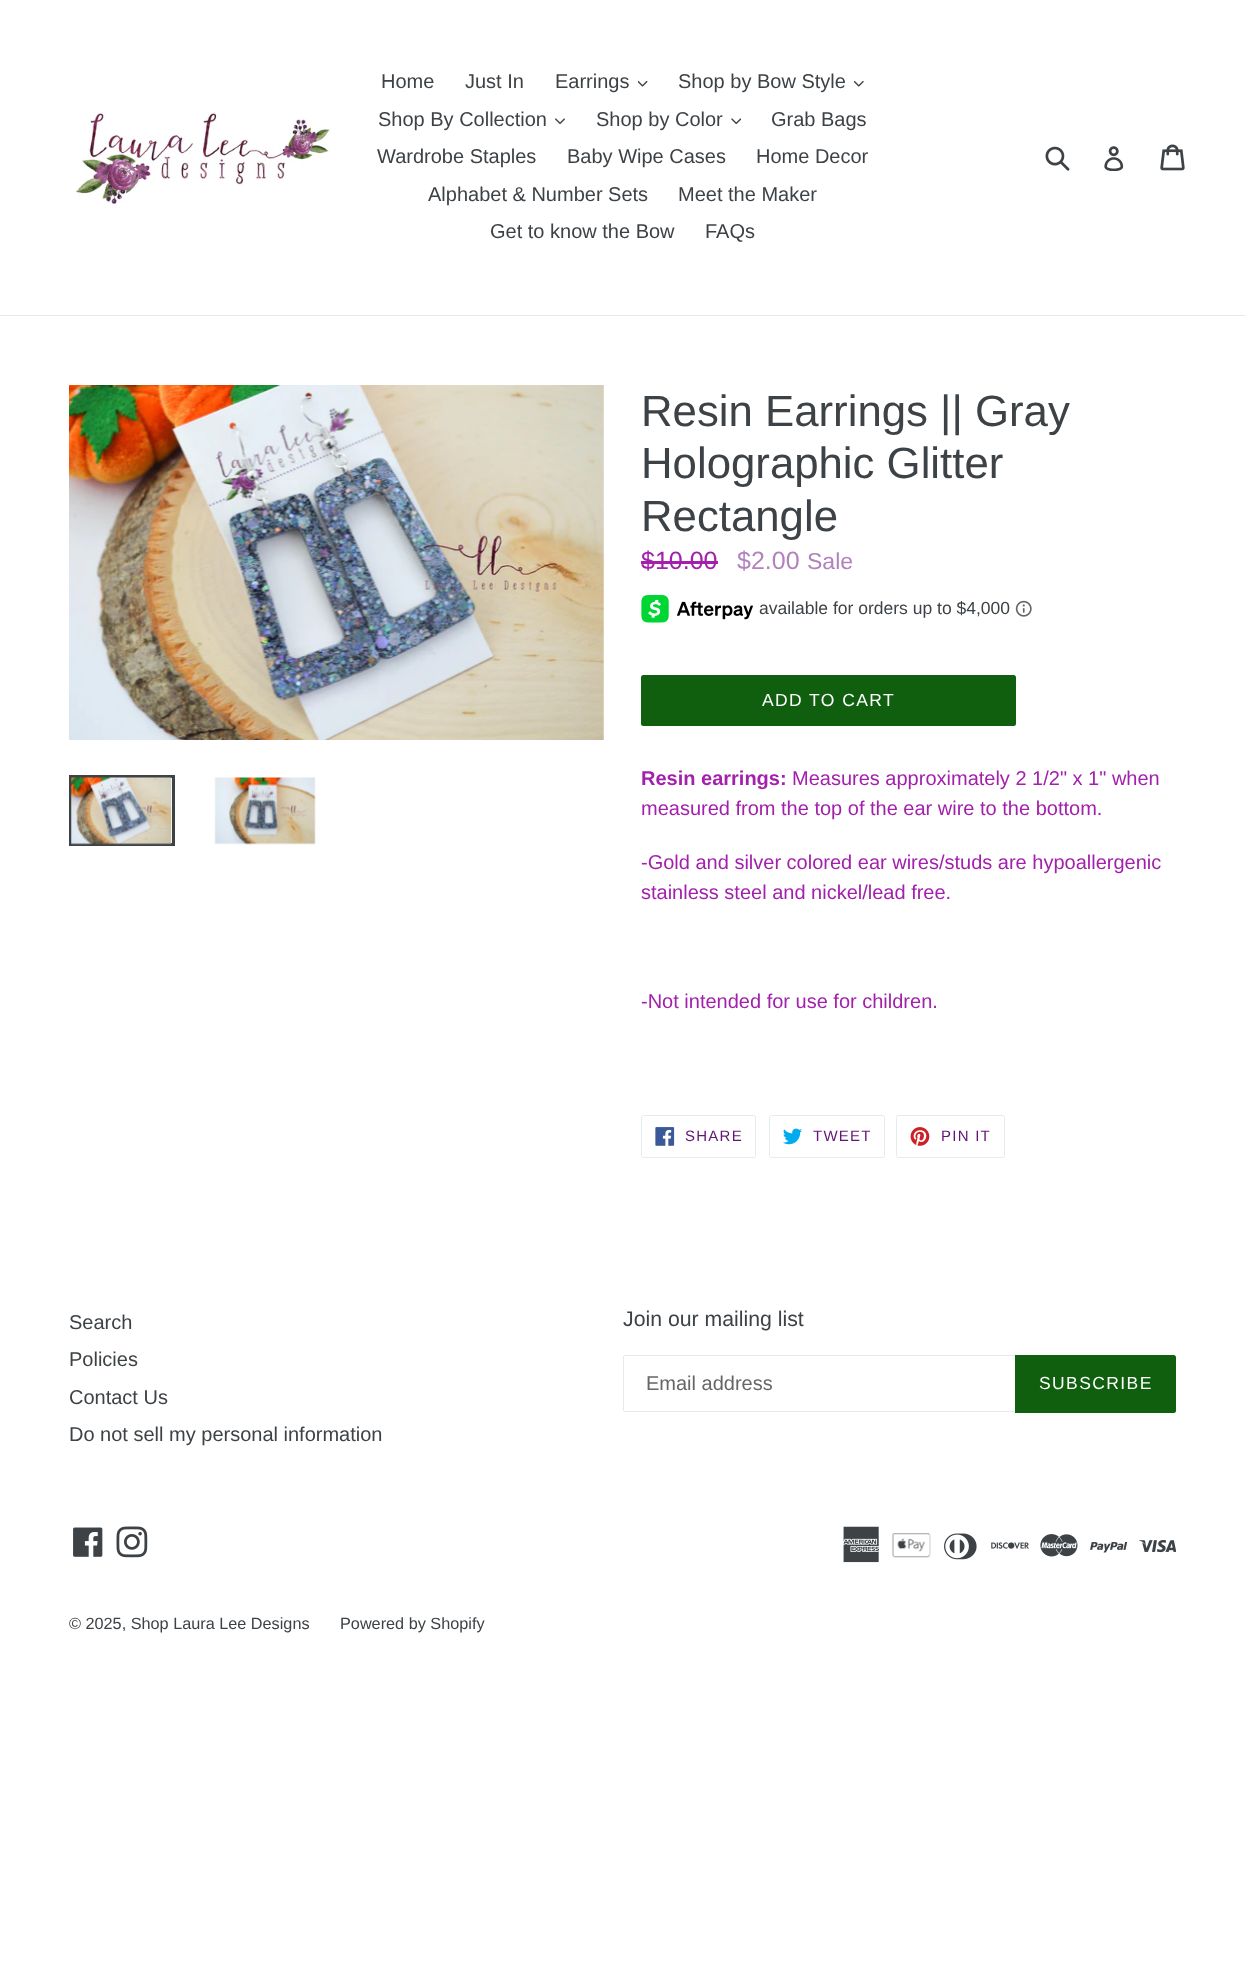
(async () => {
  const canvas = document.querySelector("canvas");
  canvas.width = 1245;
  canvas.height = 1983;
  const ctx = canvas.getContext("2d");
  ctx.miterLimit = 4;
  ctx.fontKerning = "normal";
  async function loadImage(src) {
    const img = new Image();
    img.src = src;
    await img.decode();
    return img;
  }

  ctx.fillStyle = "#ffffff";
  ctx.fillRect(0, 0, 1245, 1983);
  ctx.fillStyle = "#e8e9eb";
  ctx.fillRect(0, 315, 1245, 1);
  ctx.drawImage(await loadImage("img/1.png"), 75, 111, 256, 93);
  ctx.drawImage(await loadImage("img/2.png"), 638, 80, 10, 7);
  ctx.drawImage(await loadImage("img/3.png"), 854, 80, 10, 7);
  ctx.drawImage(await loadImage("img/4.png"), 555, 118, 10, 6);
  ctx.drawImage(await loadImage("img/5.png"), 731, 118, 10, 7);
  ctx.drawImage(await loadImage("img/6.png"), 1045, 146, 25, 25);
  ctx.drawImage(await loadImage("img/7.png"), 1104, 146, 20, 25);
  ctx.drawImage(await loadImage("img/8.png"), 1160, 144, 25, 27);
  ctx.drawImage(await loadImage("img/9.png"), 69, 385, 535, 355);
  ctx.strokeStyle = "#3d4246";
  ctx.lineWidth = 3;
  ctx.strokeRect(70.5, 776.5, 103, 68);
  ctx.drawImage(await loadImage("img/10.png"), 71, 777, 101, 68);
  ctx.drawImage(await loadImage("img/11.png"), 214, 777, 102, 68);
  ctx.fillStyle = "#a320ac";
  ctx.fillRect(641, 561, 77, 3);
  ctx.drawImage(await loadImage("img/12.png"), 641, 595, 112, 28);
  ctx.drawImage(await loadImage("img/13.png"), 1015, 600, 17, 17);
  ctx.fillStyle = "#105f0f";
  ctx.beginPath();
  ctx.roundRect(641, 675, 375, 51, 2.5);
  ctx.fill();
  ctx.beginPath();
  ctx.roundRect(641.5, 1115.5, 114, 42, 2);
  ctx.strokeStyle = "#e8e9eb";
  ctx.lineWidth = 1;
  ctx.stroke();
  ctx.drawImage(await loadImage("img/14.png"), 655, 1127, 20, 19);
  ctx.beginPath();
  ctx.roundRect(769.5, 1115.5, 115, 42, 2);
  ctx.stroke();
  ctx.drawImage(await loadImage("img/15.png"), 783, 1128, 19, 17);
  ctx.beginPath();
  ctx.roundRect(896.5, 1115.5, 108, 42, 2);
  ctx.stroke();
  ctx.drawImage(await loadImage("img/16.png"), 910, 1127, 20, 19);
  for (const [x, y, w, h, color] of [
    [624, 1355, 391, 1, "#e8e9eb"],
    [624, 1411, 391, 1, "#e8e9eb"],
    [623, 1356, 1, 55, "#e8e9eb"],
  ]) {
    ctx.fillStyle = color;
    ctx.fillRect(x, y, w, h);
  }
  ctx.fillStyle = "#105f0f";
  ctx.beginPath();
  ctx.roundRect(1015, 1355, 161, 58, [0, 2.5, 2.5, 0]);
  ctx.fill();
  ctx.drawImage(await loadImage("img/17.png"), 73, 1527, 30, 30);
  ctx.drawImage(await loadImage("img/18.png"), 116, 1526, 32, 32);
  ctx.drawImage(await loadImage("img/19.png"), 843, 1526, 36, 37);
  ctx.drawImage(await loadImage("img/20.png"), 892, 1533, 39, 25);
  ctx.drawImage(await loadImage("img/21.png"), 944, 1533, 33, 27);
  ctx.drawImage(await loadImage("img/22.png"), 991, 1542, 38, 7);
  ctx.drawImage(await loadImage("img/23.png"), 1040, 1534, 38, 23);
  ctx.drawImage(await loadImage("img/24.png"), 1090, 1542, 38, 11);
  ctx.drawImage(await loadImage("img/25.png"), 1139, 1540, 37, 13);
  ctx.font = "20px Liberation Sans";
  ctx.fillStyle = "#3d4246";
  for (const [text, x, y] of [
    ["Home", 381, 88],
    ["Just In", 465, 88],
    ["Earrings", 555, 88],
    ["Shop by Bow Style", 678, 88],
    ["Shop By Collection", 378, 126],
    ["Shop by Color", 596, 126],
    ["Grab Bags", 771, 126],
    ["Wardrobe Staples", 377, 163],
    ["Baby Wipe Cases", 567, 163],
    ["Home Decor", 756, 163],
    ["Alphabet & Number Sets", 428, 201],
    ["Meet the Maker", 678, 201],
    ["Get to know the Bow", 490, 238],
    ["FAQs", 705, 238],
  ]) {
    ctx.fillText(text, x, y);
  }
  ctx.font = "43.75px Liberation Sans";
  for (const [text, x, y] of [
    ["Resin Earrings || Gray", 641, 426],
    ["Holographic Glitter", 641, 478],
    ["Rectangle", 641, 531],
  ]) {
    ctx.fillText(text, x, y);
  }
  ctx.font = "25px Liberation Sans";
  ctx.fillStyle = "#a320ac";
  ctx.fillText("$10.00", 641, 569);
  ctx.fillStyle = "#b282bd";
  ctx.fillText("$2.00", 737, 569);
  ctx.font = "23px Liberation Sans";
  ctx.fillText("Sale", 807, 569);
  ctx.font = "17.5px Liberation Sans";
  ctx.fillStyle = "#3d4246";
  ctx.fillText("available for orders up to $4,000", 759, 614);
  ctx.letterSpacing = "1.4px";
  ctx.fillStyle = "#ffffff";
  ctx.fillText("ADD TO CART", 762, 706);
  ctx.letterSpacing = "0px";
  ctx.font = "bold 20px Liberation Sans";
  ctx.fillStyle = "#a320ac";
  ctx.fillText("Resin earrings:", 641, 785);
  ctx.font = "20px Liberation Sans";
  for (const [text, x, y] of [
    ["Measures approximately 2 1/2\" x 1\" when", 792, 785],
    ["measured from the top of the ear wire to the bottom.", 641, 815],
    ["-Gold and silver colored ear wires/studs are hypoallergenic", 641, 869],
    ["stainless steel and nickel/lead free.", 641, 899],
    ["-Not intended for use for children.", 641, 1008],
  ]) {
    ctx.fillText(text, x, y);
  }
  ctx.letterSpacing = "1.25px";
  ctx.font = "15px Liberation Sans";
  ctx.fillStyle = "#631575";
  for (const [text, x, y] of [
    ["SHARE", 685, 1141],
    ["TWEET", 813, 1141],
    ["PIN IT", 941, 1141],
  ]) {
    ctx.fillText(text, x, y);
  }
  ctx.letterSpacing = "0px";
  ctx.font = "20px Liberation Sans";
  ctx.fillStyle = "#3d4246";
  for (const [text, x, y] of [
    ["Search", 69, 1329],
    ["Policies", 69, 1366],
    ["Contact Us", 69, 1404],
    ["Do not sell my personal information", 69, 1441],
  ]) {
    ctx.fillText(text, x, y);
  }
  ctx.font = "21.25px Liberation Sans";
  ctx.fillText("Join our mailing list", 623, 1326);
  ctx.font = "20px Liberation Sans";
  ctx.fillStyle = "#666666";
  ctx.fillText("Email address", 646, 1390);
  ctx.letterSpacing = "1.4px";
  ctx.font = "17.5px Liberation Sans";
  ctx.fillStyle = "#ffffff";
  ctx.fillText("SUBSCRIBE", 1039, 1389);
  ctx.letterSpacing = "0px";
  ctx.font = "16.25px Liberation Sans";
  ctx.fillStyle = "#3d4246";
  ctx.fillText("© 2025, Shop Laura Lee Designs", 69, 1629);
  ctx.fillText("Powered by Shopify", 340, 1629);
})();
